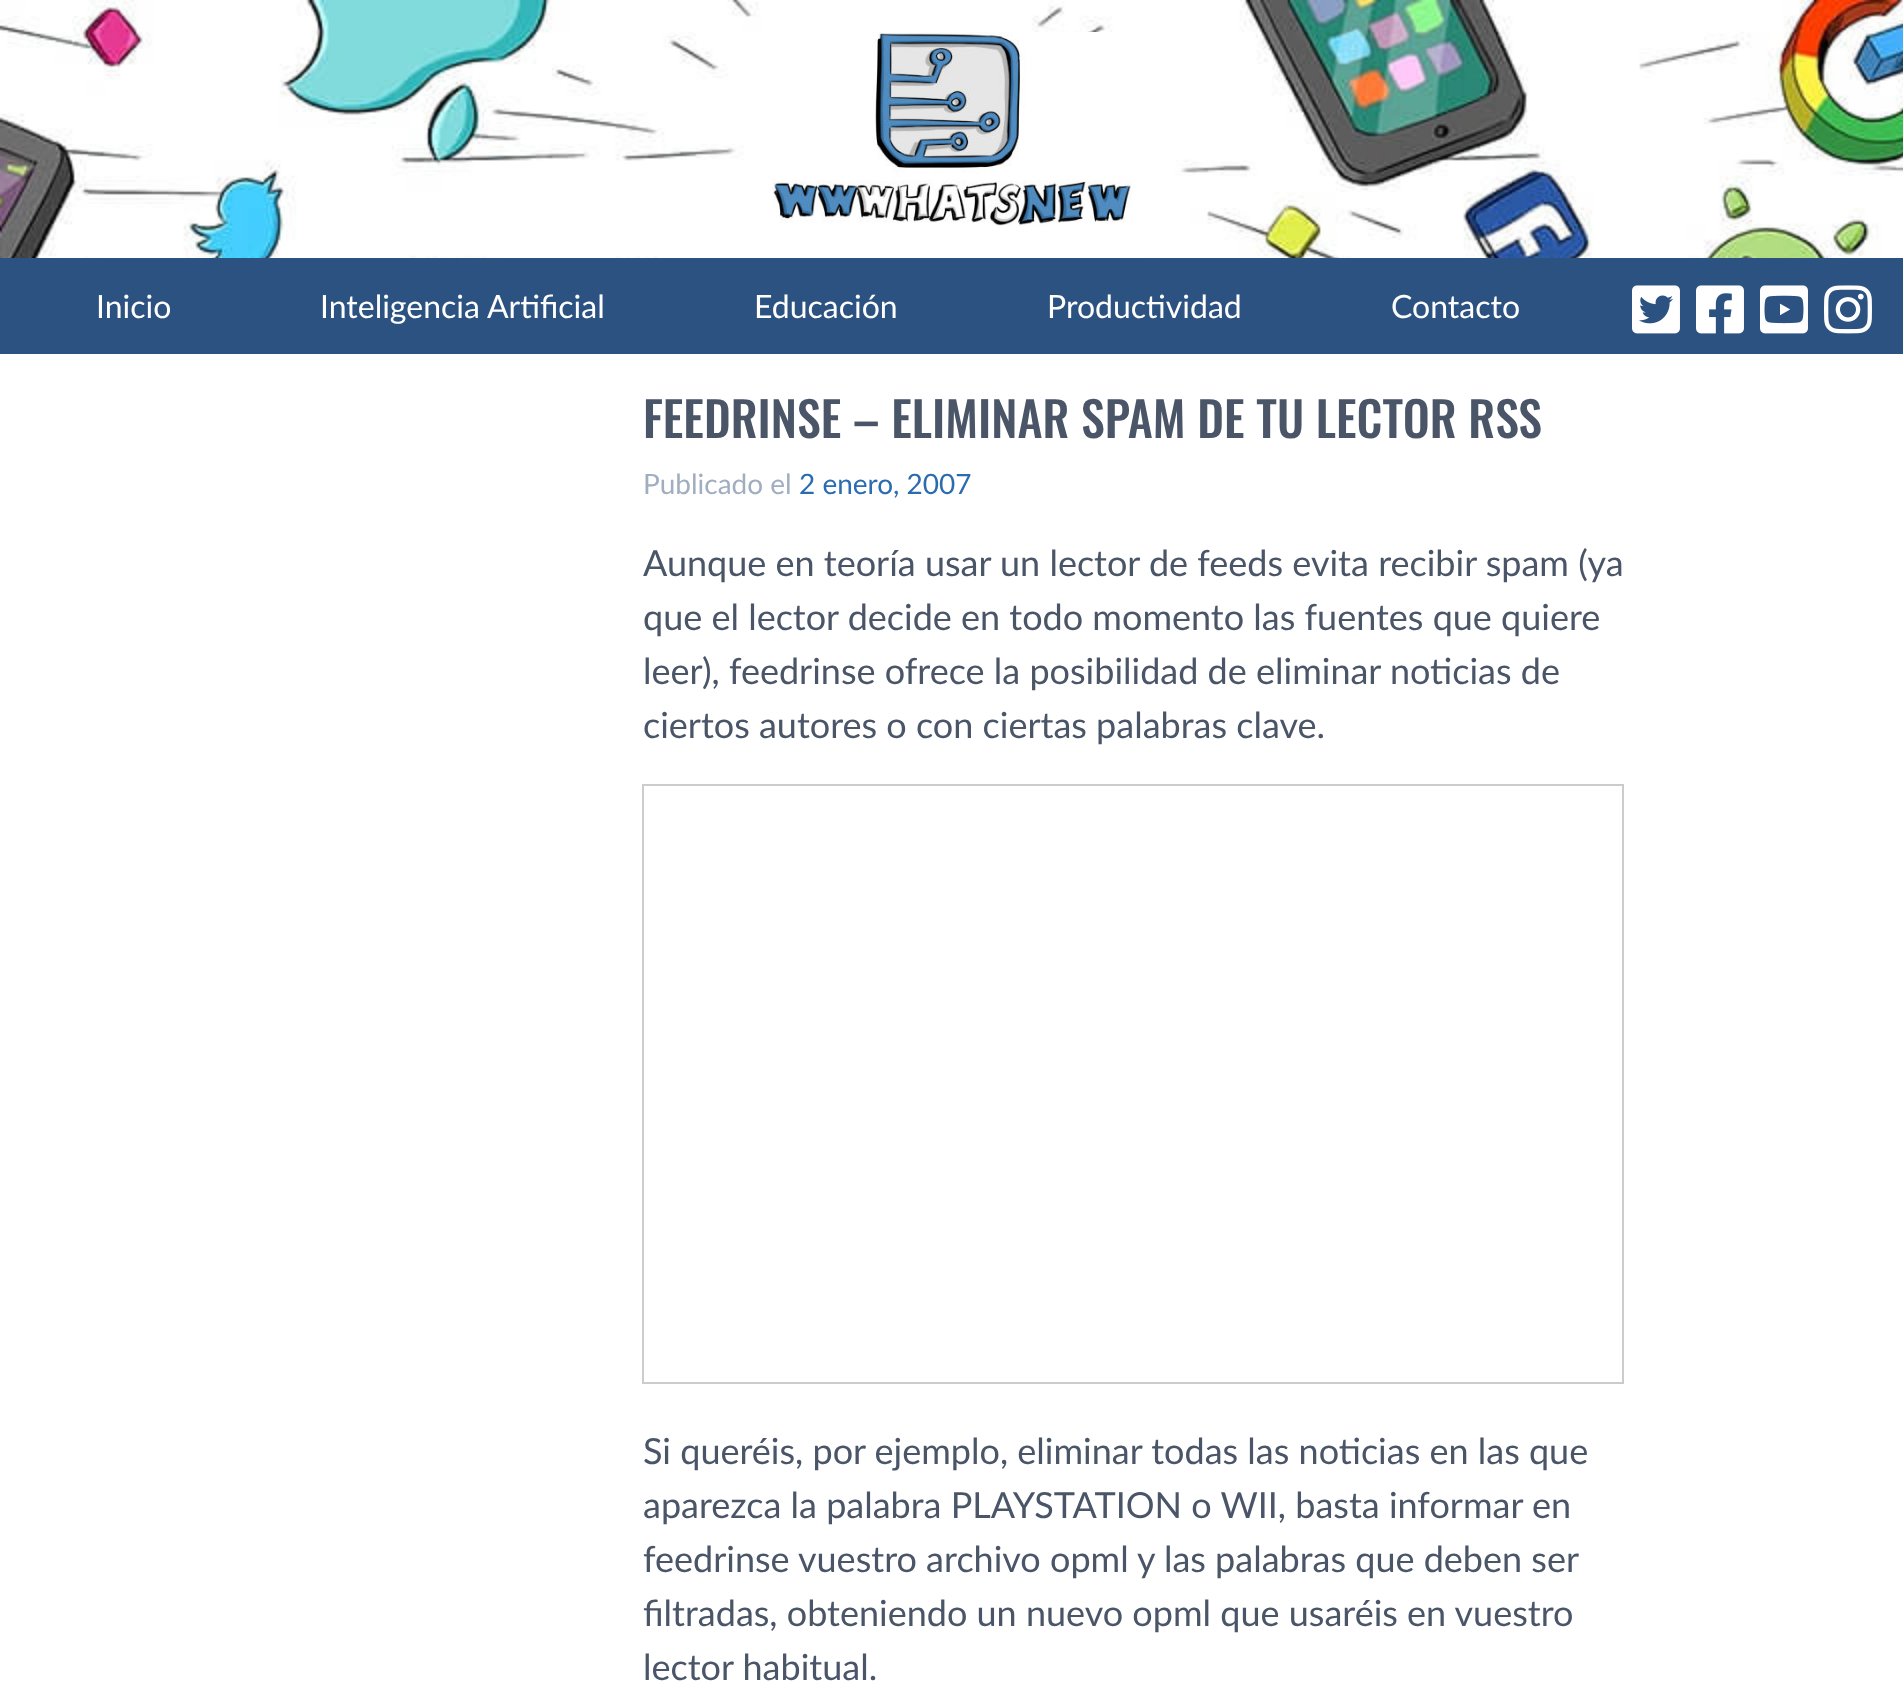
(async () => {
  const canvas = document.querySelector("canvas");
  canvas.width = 1903;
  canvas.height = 1705;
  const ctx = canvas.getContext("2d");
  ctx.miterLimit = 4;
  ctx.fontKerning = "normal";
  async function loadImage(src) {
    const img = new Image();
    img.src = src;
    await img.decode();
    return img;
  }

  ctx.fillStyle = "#ffffff";
  ctx.fillRect(0, 0, 1903, 1705);
  ctx.drawImage(await loadImage("img/1.png"), 0, 0, 1903, 258);
  ctx.drawImage(await loadImage("img/2.png"), 772, 32, 360, 194);
  ctx.fillStyle = "#2c5282";
  ctx.fillRect(0, 258, 1903, 96);
  ctx.drawImage(await loadImage("img/3.png"), 1632, 285, 48, 49);
  ctx.drawImage(await loadImage("img/4.png"), 1696, 285, 48, 49);
  ctx.drawImage(await loadImage("img/5.png"), 1760, 285, 48, 49);
  ctx.drawImage(await loadImage("img/6.png"), 1824, 285, 48, 49);
  ctx.strokeStyle = "#cccccc";
  ctx.lineWidth = 2;
  ctx.strokeRect(643, 785, 980, 598);
  ctx.font = "32px Lato";
  ctx.fillStyle = "#ffffff";
  for (const [text, x, y] of [
    ["Inicio", 96, 318],
    ["Inteligencia Artificial", 320, 318],
    ["Educación", 754, 318],
    ["Productividad", 1047, 318],
    ["Contacto", 1391, 318],
  ]) {
    ctx.fillText(text, x, y);
  }
  ctx.font = "500 48px Oswald";
  ctx.fillStyle = "#4a5568";
  ctx.fillText("FEEDRINSE – ELIMINAR SPAM DE TU LECTOR RSS", 643, 438);
  ctx.font = "28px Lato";
  ctx.fillStyle = "#a0aec0";
  ctx.fillText("Publicado el", 643, 494);
  ctx.fillStyle = "#2b6cb0";
  ctx.fillText("2 enero, 2007", 799, 494);
  ctx.font = "36px Lato";
  ctx.fillStyle = "#4a5568";
  for (const [text, x, y] of [
    ["Aunque en teoría usar un lector de feeds evita recibir spam (ya", 643, 576],
    ["que el lector decide en todo momento las fuentes que quiere", 643, 630],
    ["leer), feedrinse ofrece la posibilidad de eliminar noticias de", 643, 684],
    ["ciertos autores o con ciertas palabras clave.", 643, 738],
    ["Si queréis, por ejemplo, eliminar todas las noticias en las que", 643, 1464],
    ["aparezca la palabra PLAYSTATION o WII, basta informar en", 643, 1518],
    ["feedrinse vuestro archivo opml y las palabras que deben ser", 643, 1572],
    ["filtradas, obteniendo un nuevo opml que usaréis en vuestro", 643, 1626],
    ["lector habitual.", 643, 1680],
  ]) {
    ctx.fillText(text, x, y);
  }
})();
